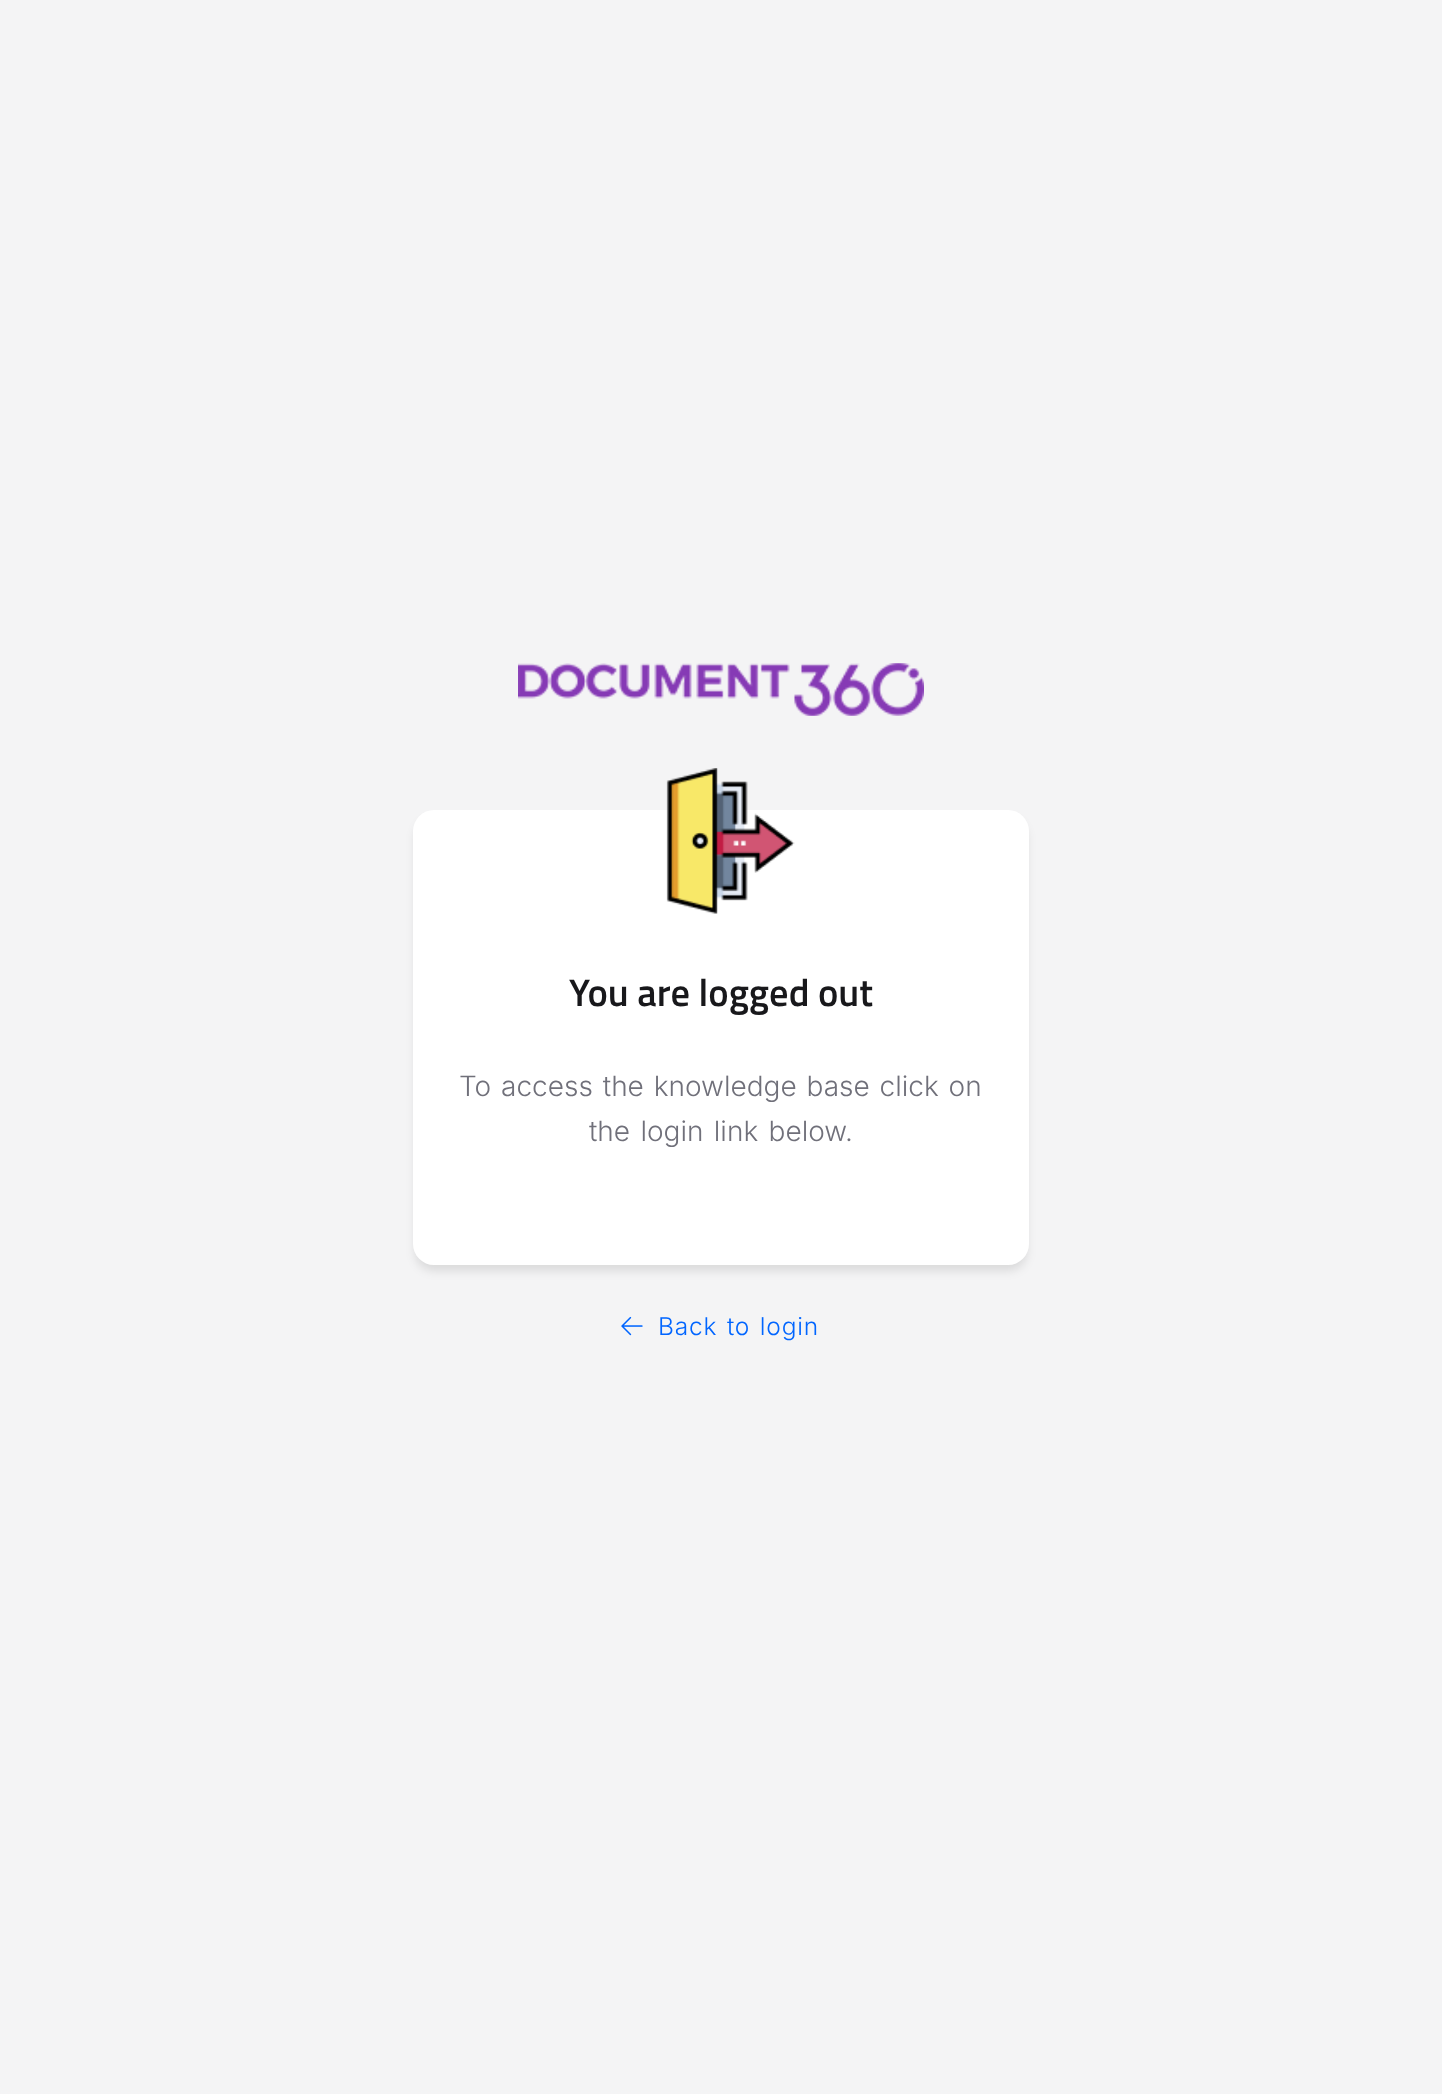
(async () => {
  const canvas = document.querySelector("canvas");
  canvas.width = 1442;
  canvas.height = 2094;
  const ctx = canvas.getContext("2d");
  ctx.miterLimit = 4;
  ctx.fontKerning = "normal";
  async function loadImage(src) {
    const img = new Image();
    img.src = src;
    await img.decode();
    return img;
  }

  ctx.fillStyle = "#f4f4f5";
  ctx.fillRect(0, 0, 1442, 2094);
  ctx.drawImage(await loadImage("img/1.png"), 518, 663, 406, 53);
  ctx.fillStyle = "rgba(0, 0, 0, 0.1)";
  ctx.filter = "blur(5px)";
  ctx.beginPath();
  ctx.roundRect(415, 819, 612, 452, 19);
  ctx.fill();
  ctx.filter = "none";
  ctx.fillStyle = "#ffffff";
  ctx.beginPath();
  ctx.roundRect(413, 810, 616, 455, 21);
  ctx.fill();
  ctx.drawImage(await loadImage("img/2.png"), 666, 768, 129, 146);
  ctx.drawImage(await loadImage("img/3.png"), 621, 1316, 22, 20);
  ctx.font = "600 38.5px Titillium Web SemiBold";
  ctx.fillStyle = "#18181b";
  ctx.fillText("You are logged out", 569, 1006);
  ctx.wordSpacing = "2px";
  ctx.font = "300 28px Inter";
  ctx.fillStyle = "#70707a";
  ctx.fillText("To access the knowledge base click on", 459, 1096);
  ctx.wordSpacing = "2.5px";
  ctx.fillText("the login link below.", 589, 1141);
  ctx.letterSpacing = "0.8px";
  ctx.wordSpacing = "2px";
  ctx.font = "300 24.5px Inter";
  ctx.fillStyle = "#0065ff";
  ctx.fillText("Back to login", 658, 1335);
})();
